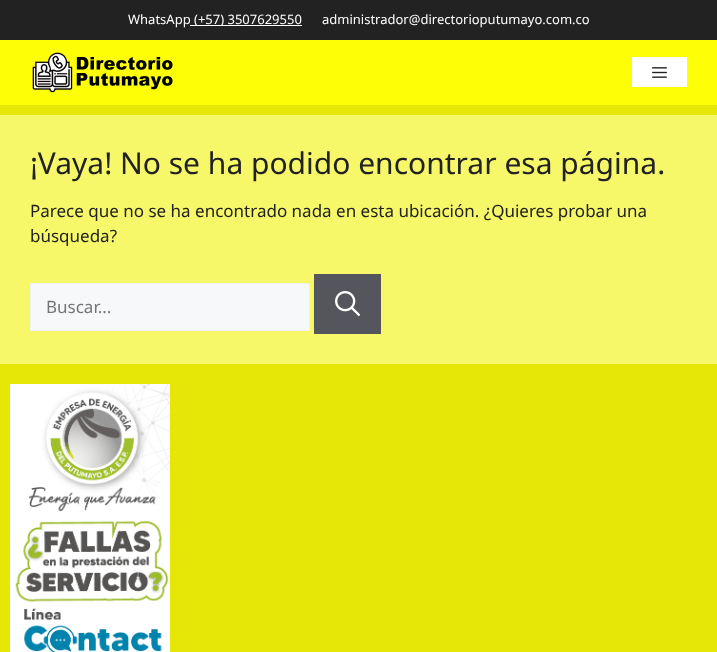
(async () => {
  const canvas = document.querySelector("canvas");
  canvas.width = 717;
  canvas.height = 652;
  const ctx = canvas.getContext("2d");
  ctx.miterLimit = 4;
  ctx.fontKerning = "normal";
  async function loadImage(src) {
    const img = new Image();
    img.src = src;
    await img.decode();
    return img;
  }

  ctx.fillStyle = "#e6e607";
  ctx.fillRect(0, 0, 717, 652);
  for (const [x, y, w, h, color] of [
    [0, 0, 717, 40, "#222222"],
    [190, 25, 112, 1, "#ffffff"],
    [0, 40, 717, 65, "#fefe06"],
  ]) {
    ctx.fillStyle = color;
    ctx.fillRect(x, y, w, h);
  }
  ctx.drawImage(await loadImage("img/1.png"), 32, 52, 141, 41);
  ctx.fillStyle = "#ffffff";
  ctx.fillRect(632, 57, 55, 30);
  ctx.drawImage(await loadImage("img/2.png"), 652, 67, 15, 11);
  ctx.fillStyle = "#f7f76a";
  ctx.fillRect(0, 115, 717, 249);
  ctx.fillStyle = "#f7f8f9";
  ctx.beginPath();
  ctx.rect(30.5, 283.5, 279, 47);
  ctx.fill();
  ctx.strokeStyle = "#f0f0f0";
  ctx.stroke();
  ctx.fillStyle = "#55555e";
  ctx.fillRect(314, 274, 67, 60);
  ctx.drawImage(await loadImage("img/3.png"), 335, 291, 25, 25);
  ctx.drawImage(await loadImage("img/4.png"), 10, 384, 160, 268);
  ctx.font = "13px Noto Sans";
  ctx.fillStyle = "#ffffff";
  for (const [text, x, y] of [
    ["WhatsApp", 128, 24],
    ["(+57) 3507629550", 194, 24],
    ["administrador@directorioputumayo.com.co", 322, 24],
  ]) {
    ctx.fillText(text, x, y);
  }
  ctx.font = "30px Noto Sans";
  ctx.fillStyle = "#222222";
  ctx.fillText("¡Vaya! No se ha podido encontrar esa página.", 30, 174);
  ctx.font = "17px Noto Sans";
  ctx.fillText("Parece que no se ha encontrado nada en esta ubicación. ¿Quieres probar una", 30, 217);
  ctx.fillText("búsqueda?", 30, 242);
  ctx.fillStyle = "#757575";
  ctx.fillText("Buscar...", 46, 313);
})();
